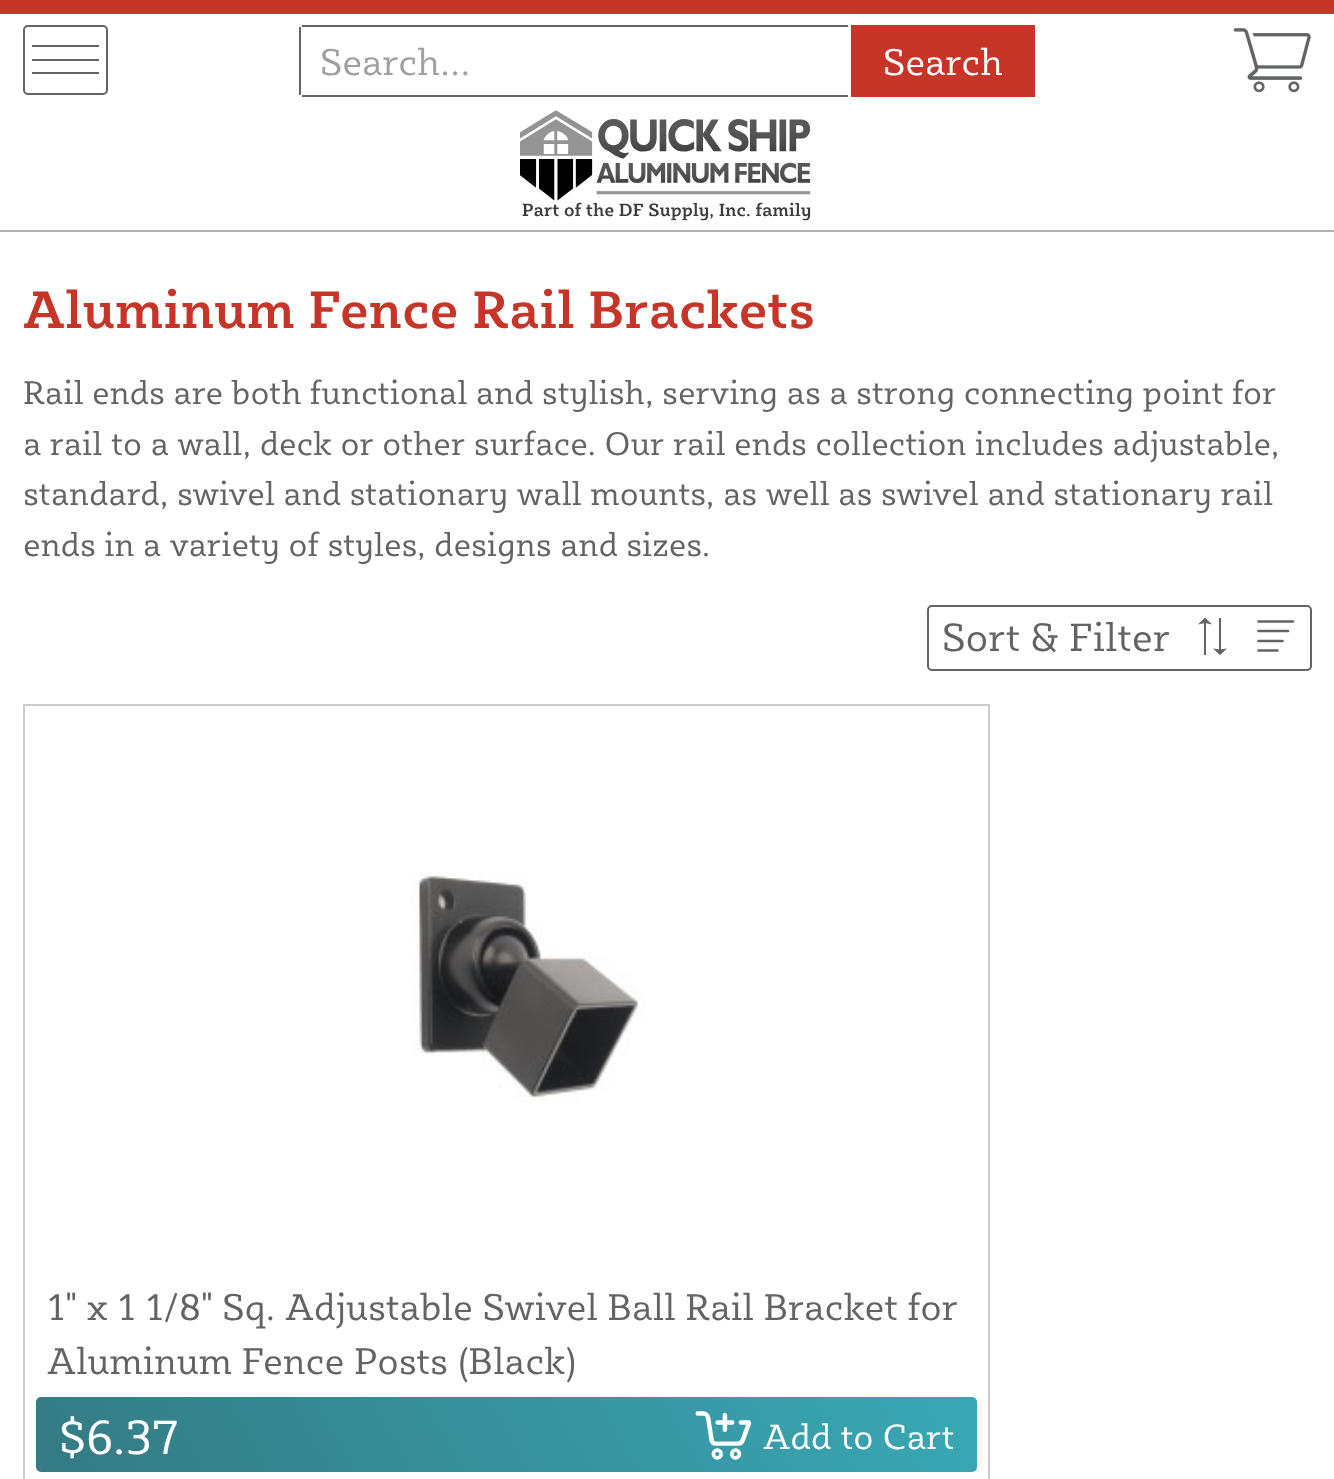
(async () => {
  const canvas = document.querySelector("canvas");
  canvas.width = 1334;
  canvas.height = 1479;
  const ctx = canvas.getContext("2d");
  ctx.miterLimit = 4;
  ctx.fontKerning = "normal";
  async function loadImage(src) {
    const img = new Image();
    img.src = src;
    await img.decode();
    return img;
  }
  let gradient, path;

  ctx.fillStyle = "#ffffff";
  ctx.fillRect(0, 0, 1334, 1479);
  ctx.fillStyle = "#c63527";
  ctx.fillRect(0, 0, 1334, 14);
  ctx.fillStyle = "#b1b1b1";
  ctx.fillRect(0, 230, 1334, 2);
  ctx.beginPath();
  ctx.roundRect(24, 26, 83, 68, 4);
  ctx.strokeStyle = "#636363";
  ctx.lineWidth = 2;
  ctx.stroke();
  for (const [x, y, w, h, color] of [
    [32, 45, 67, 2, "#636363"],
    [32, 59, 67, 2, "#636363"],
    [32, 72, 67, 2, "#636363"],
    [302, 25, 546, 2, "#636363"],
    [302, 95, 546, 2, "#636363"],
    [299, 27, 2, 68, "#636363"],
  ]) {
    ctx.fillStyle = color;
    ctx.fillRect(x, y, w, h);
  }
  gradient = ctx.createLinearGradient(520, 199, 997, -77);
  gradient.addColorStop(0, "#c63527");
  gradient.addColorStop(0.13, "#c63527");
  gradient.addColorStop(0.2, "#f14636");
  gradient.addColorStop(0.27, "#c63527");
  gradient.addColorStop(1, "#c63527");
  ctx.fillStyle = gradient;
  ctx.fillRect(851, 25, 184, 72);
  ctx.drawImage(await loadImage("img/1.png"), 1233, 28, 78, 65);
  ctx.drawImage(await loadImage("img/2.png"), 520, 110, 291, 111);
  ctx.beginPath();
  ctx.roundRect(928, 606, 383, 64, 4);
  ctx.stroke();
  ctx.fillStyle = "#636565";
  ctx.fillRect(1219, 618, 2, 35);
  path = new Path2D("M1213 648.5L1220 655L1227 648.5L1220 649.5Z");
  ctx.fill(path);
  ctx.fillRect(1204, 620, 2, 35);
  path = new Path2D("M1212 624.5L1205 623L1198 624.5L1205 617.5Z");
  ctx.fill(path);
  path = new Path2D("M1258.5 621.5H1293M1258.5 631H1288M1258.5 641H1282.5M1258.5 650.5H1277.5");
  ctx.strokeStyle = "#636565";
  ctx.lineWidth = 2.7;
  ctx.lineCap = "round";
  ctx.stroke(path);
  ctx.strokeStyle = "#cccccc";
  ctx.lineWidth = 2;
  ctx.strokeRect(24, 705, 965, 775);
  ctx.drawImage(await loadImage("img/3.png"), 411, 871, 235, 231);
  gradient = ctx.createLinearGradient(-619, 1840, 785, 1029);
  gradient.addColorStop(0, "#337179");
  gradient.addColorStop(0.13, "#337179");
  gradient.addColorStop(0.28, "#39a9b6");
  gradient.addColorStop(0.35, "#337179");
  gradient.addColorStop(1, "#39a9b6");
  ctx.fillStyle = gradient;
  ctx.beginPath();
  ctx.roundRect(36, 1397, 941, 75, 5);
  ctx.fill();
  ctx.drawImage(await loadImage("img/4.png"), 695, 1411, 57, 49);
  ctx.font = "38.25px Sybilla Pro";
  ctx.fillStyle = "#a0a0a0";
  ctx.fillText("Search...", 320, 75);
  ctx.fillStyle = "#ffffff";
  ctx.fillText("Search", 883, 75);
  ctx.font = "500 54px Sybilla Pro";
  ctx.fillStyle = "#c63527";
  ctx.fillText("Aluminum Fence Rail Brackets", 23, 328);
  ctx.font = "33.75px Sybilla Pro";
  ctx.fillStyle = "#636363";
  for (const [text, x, y] of [
    ["Rail ends are both functional and stylish, serving as a strong connecting point for", 23, 404],
    ["a rail to a wall, deck or other surface. Our rail ends collection includes adjustable,", 23, 455],
    ["standard, swivel and stationary wall mounts, as well as swivel and stationary rail", 23, 505],
    ["ends in a variety of styles, designs and sizes.", 23, 556],
  ]) {
    ctx.fillText(text, x, y);
  }
  ctx.font = "40.5px Sybilla Pro";
  ctx.fillText("Sort & Filter", 942, 651);
  ctx.font = "38.25px Sybilla Pro";
  ctx.fillText("1\" x 1 1/8\" Sq. Adjustable Swivel Ball Rail Bracket for", 47, 1320);
  ctx.fillText("Aluminum Fence Posts (Black)", 47, 1374);
  ctx.font = "49.5px Sybilla Pro";
  ctx.fillStyle = "#ffffff";
  ctx.fillText("$6.37", 59, 1454);
  ctx.font = "36px Sybilla Pro";
  ctx.fillText("Add to Cart", 763, 1449);
})();
